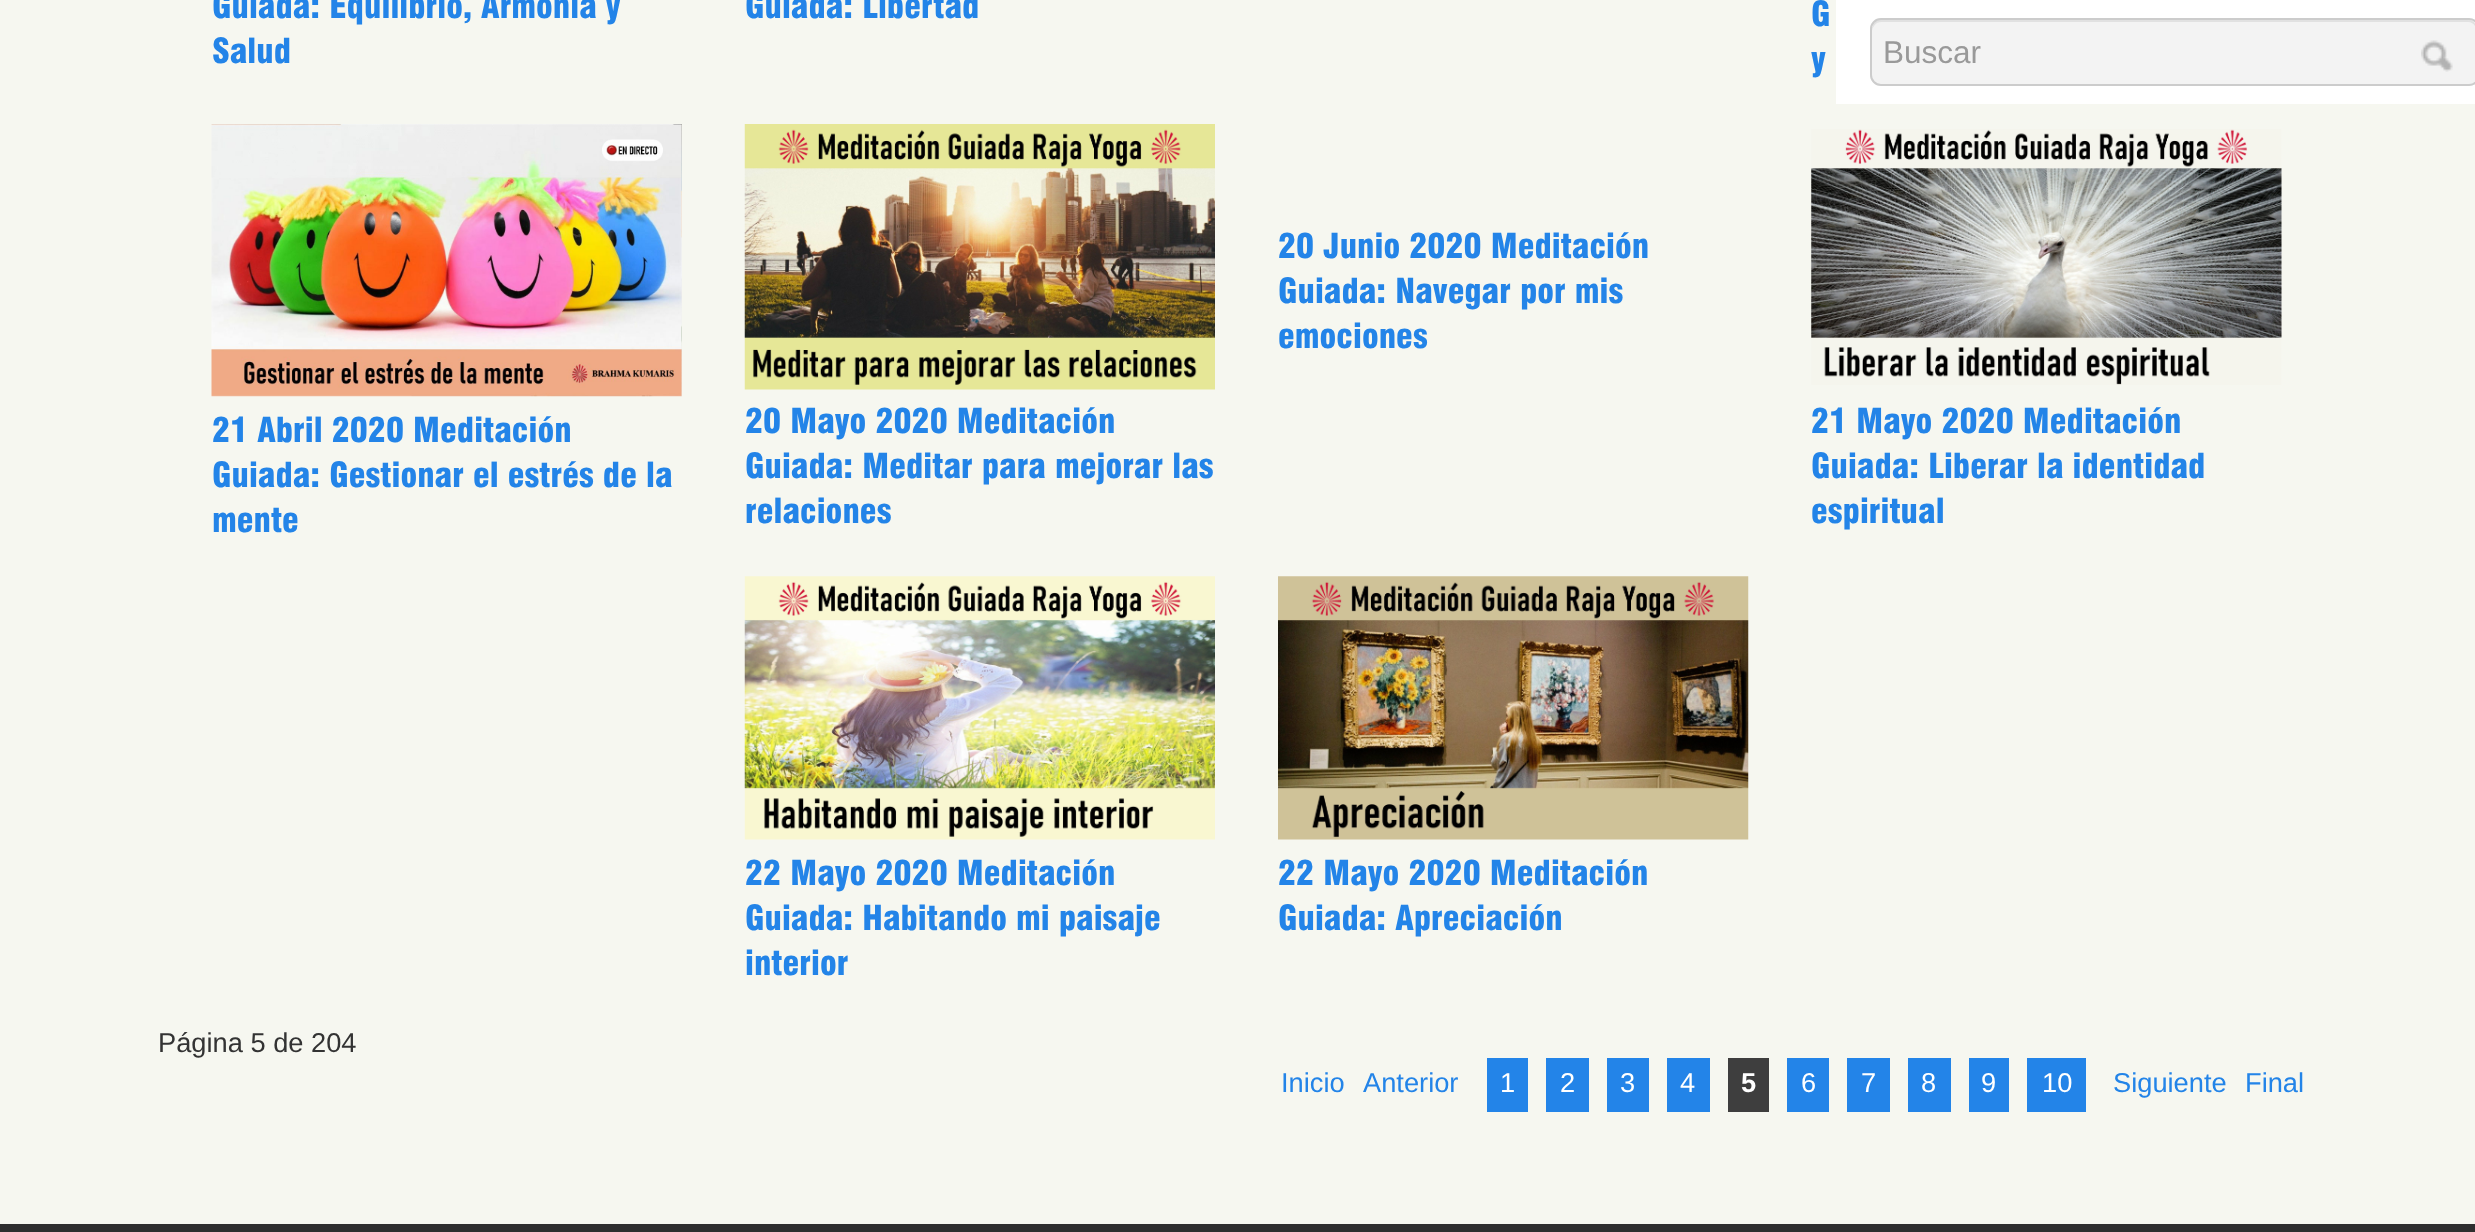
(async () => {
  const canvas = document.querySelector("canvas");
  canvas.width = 2475;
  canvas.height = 1232;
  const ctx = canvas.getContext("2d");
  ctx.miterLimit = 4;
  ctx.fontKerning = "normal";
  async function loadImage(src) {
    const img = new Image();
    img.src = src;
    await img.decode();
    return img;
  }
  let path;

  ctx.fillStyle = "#f6f7f0";
  ctx.fillRect(0, 0, 2475, 1232);
  ctx.drawImage(await loadImage("img/1.png"), 211, 124, 471, 273);
  ctx.drawImage(await loadImage("img/2.png"), 744, 124, 471, 266);
  ctx.drawImage(await loadImage("img/3.png"), 1811, 129, 471, 256);
  ctx.drawImage(await loadImage("img/4.png"), 744, 576, 471, 264);
  ctx.drawImage(await loadImage("img/5.png"), 1278, 576, 471, 264);
  for (const [x, y, w, h, color] of [
    [1487, 1058, 41, 54, "#2384e8"],
    [1546, 1058, 43, 54, "#2384e8"],
    [1607, 1058, 42, 54, "#2384e8"],
    [1667, 1058, 43, 54, "#2384e8"],
    [1728, 1058, 41, 54, "#3e3e3e"],
    [1787, 1058, 42, 54, "#2384e8"],
    [1847, 1058, 43, 54, "#2384e8"],
    [1908, 1058, 43, 54, "#2384e8"],
    [1969, 1058, 40, 54, "#2384e8"],
    [2027, 1058, 59, 54, "#2384e8"],
    [1836, 0, 639, 104, "#ffffff"],
  ]) {
    ctx.fillStyle = color;
    ctx.fillRect(x, y, w, h);
  }
  ctx.fillStyle = "#f3f3f3";
  ctx.beginPath();
  ctx.roundRect(1870, 18, 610, 68, 11);
  ctx.fill();
  ctx.fillStyle = "#e1e1e1";
  path = new Path2D("M1881 22H2468C2473 22 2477 27 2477 32C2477 26 2475 20 2468 20H1881C1874 20 1872 26 1872 32C1872 27 1876 22 1881 22Z");
  ctx.fill(path);
  ctx.beginPath();
  ctx.roundRect(1871, 19, 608, 66, 10);
  ctx.strokeStyle = "#cccccc";
  ctx.lineWidth = 2;
  ctx.stroke();
  ctx.drawImage(await loadImage("img/6.png"), 2421, 40, 32, 32);
  ctx.fillStyle = "#2e2e2e";
  ctx.fillRect(0, 1224, 2475, 8);
  ctx.font = "900 33.75px 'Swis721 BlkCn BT'";
  ctx.fillStyle = "#2384e8";
  for (const [text, x, y] of [
    ["Guiada: Equilibrio, Armonia y", 212, 18],
    ["Salud", 212, 63],
    ["Guiada: Libertad", 745, 18],
    ["G", 1811, 26],
    ["y", 1811, 71],
    ["20 Junio 2020 Meditación", 1278, 258],
    ["Guiada: Navegar por mis", 1278, 303],
    ["emociones", 1278, 348],
    ["21 Abril 2020 Meditación", 212, 442],
    ["Guiada: Gestionar el estrés de la", 212, 487],
    ["mente", 212, 532],
    ["20 Mayo 2020 Meditación", 745, 433],
    ["Guiada: Meditar para mejorar las", 745, 478],
    ["relaciones", 745, 523],
    ["21 Mayo 2020 Meditación", 1811, 433],
    ["Guiada: Liberar la identidad", 1811, 478],
    ["espiritual", 1811, 523],
    ["22 Mayo 2020 Meditación", 745, 885],
    ["Guiada: Habitando mi paisaje", 745, 930],
    ["interior", 745, 975],
    ["22 Mayo 2020 Meditación", 1278, 885],
    ["Guiada: Apreciación", 1278, 930],
  ]) {
    ctx.fillText(text, x, y);
  }
  ctx.font = "27.25px Liberation Sans";
  ctx.fillStyle = "#333333";
  ctx.fillText("Página 5 de 204", 158, 1052);
  ctx.fillStyle = "#2384e8";
  ctx.fillText("Inicio", 1281, 1092);
  ctx.fillText("Anterior", 1363, 1092);
  ctx.fillStyle = "#ffffff";
  for (const [text, x, y] of [
    ["1", 1500, 1092],
    ["2", 1560, 1092],
    ["3", 1620, 1092],
    ["4", 1680, 1092],
  ]) {
    ctx.fillText(text, x, y);
  }
  ctx.font = "bold 27.25px Liberation Sans";
  ctx.fillText("5", 1741, 1092);
  ctx.font = "27.25px Liberation Sans";
  for (const [text, x, y] of [
    ["6", 1801, 1092],
    ["7", 1861, 1092],
    ["8", 1921, 1092],
    ["9", 1981, 1092],
    ["10", 2042, 1092],
  ]) {
    ctx.fillText(text, x, y);
  }
  ctx.fillStyle = "#2384e8";
  ctx.fillText("Siguiente", 2113, 1092);
  ctx.fillText("Final", 2245, 1092);
  ctx.font = "31.5px Liberation Sans";
  ctx.fillStyle = "#999999";
  ctx.fillText("Buscar", 1883, 63);
})();
